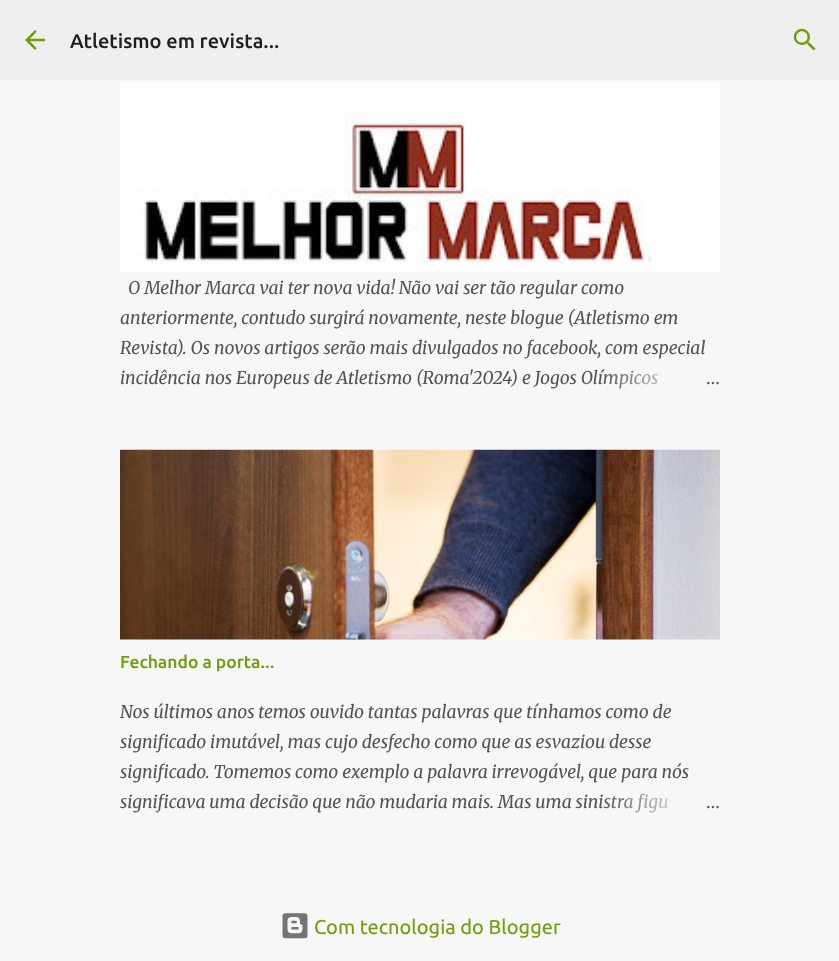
(async () => {
  const canvas = document.querySelector("canvas");
  canvas.width = 839;
  canvas.height = 961;
  const ctx = canvas.getContext("2d");
  ctx.miterLimit = 4;
  ctx.fontKerning = "normal";
  async function loadImage(src) {
    const img = new Image();
    img.src = src;
    await img.decode();
    return img;
  }
  let gradient;

  ctx.fillStyle = "#f7f7f7";
  ctx.fillRect(0, 0, 839, 961);
  ctx.fillStyle = "#efefef";
  ctx.fillRect(0, 0, 839, 80);
  ctx.drawImage(await loadImage("img/1.png"), 25, 30, 20, 20);
  ctx.drawImage(await loadImage("img/2.png"), 793, 28, 23, 23);
  ctx.drawImage(await loadImage("img/3.png"), 120, 82, 600, 190);
  ctx.drawImage(await loadImage("img/4.png"), 120, 449, 600, 191);
  ctx.drawImage(await loadImage("img/5.png"), 282, 913, 26, 26);
  ctx.font = "500 20px Ubuntu";
  ctx.fillStyle = "#1f1f1f";
  ctx.fillText("Atletismo em revista...", 70, 48);
  ctx.font = "italic 17.5px Merriweather";
  ctx.fillStyle = "#535353";
  for (const [text, x, y] of [
    ["O Melhor Marca vai ter nova vida! Não vai ser tão regular como", 128, 294],
    ["anteriormente, contudo surgirá novamente, neste blogue (Atletismo em", 120, 324],
    ["Revista). Os novos artigos serão mais divulgados no facebook, com especial", 120, 354],
    ["incidência nos Europeus de Atletismo (Roma'2024) e Jogos Olímpicos", 120, 384],
  ]) {
    ctx.fillText(text, x, y);
  }
  gradient = ctx.createLinearGradient(720, 378, 600, 378);
  gradient.addColorStop(0, "#f7f7f7");
  gradient.addColorStop(0.2, "#f7f7f7");
  gradient.addColorStop(1, "rgba(247, 247, 247, 0)");
  ctx.fillStyle = gradient;
  ctx.fillRect(602, 369, 56, 20);
  ctx.font = "300 17.5px Merriweather";
  ctx.fillStyle = "#535353";
  ctx.fillText("…", 706, 384);
  ctx.font = "500 17.5px Ubuntu";
  ctx.fillStyle = "#729c0b";
  ctx.fillText("Fechando a porta...", 120, 668);
  ctx.font = "italic 17.5px Merriweather";
  ctx.fillStyle = "#535353";
  for (const [text, x, y] of [
    ["Nos últimos anos temos ouvido tantas palavras que tínhamos como de", 120, 718],
    ["significado imutável, mas cujo desfecho como que as esvaziou desse", 120, 748],
    ["significado. Tomemos como exemplo a palavra irrevogável, que para nós", 120, 778],
    ["significava uma decisão que não mudaria mais. Mas uma sinistra figu", 120, 808],
  ]) {
    ctx.fillText(text, x, y);
  }
  gradient = ctx.createLinearGradient(720, 801, 600, 801);
  gradient.addColorStop(0, "#f7f7f7");
  gradient.addColorStop(0.2, "#f7f7f7");
  gradient.addColorStop(1, "rgba(247, 247, 247, 0)");
  ctx.fillStyle = gradient;
  ctx.fillRect(602, 793, 66, 20);
  ctx.font = "300 17.5px Merriweather";
  ctx.fillStyle = "#535353";
  ctx.fillText("…", 706, 808);
  ctx.font = "20px Ubuntu";
  ctx.fillStyle = "#729c0b";
  ctx.fillText("Com tecnologia do Blogger", 314, 934);
})();
